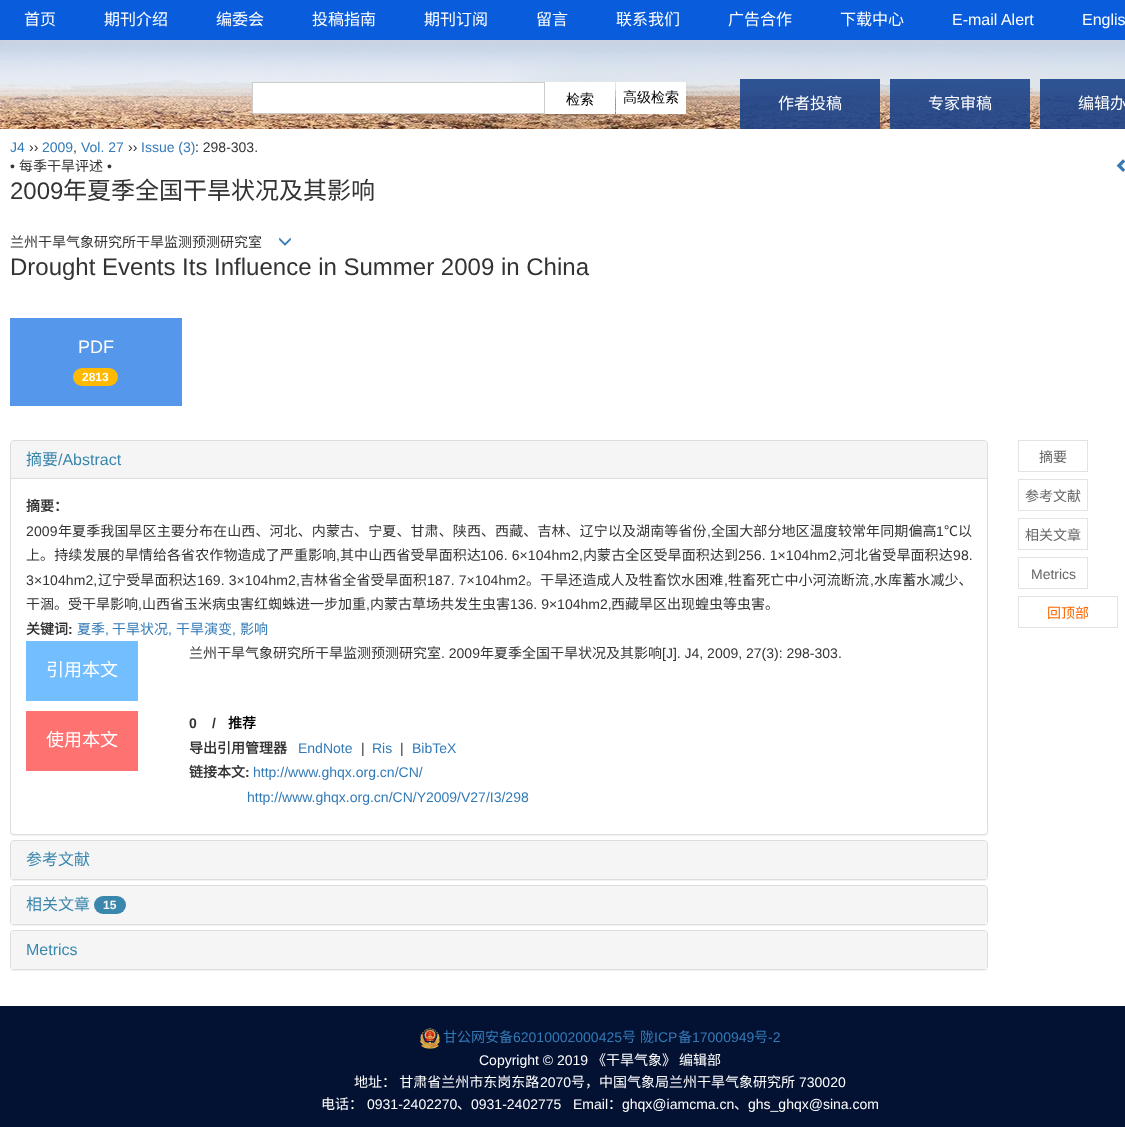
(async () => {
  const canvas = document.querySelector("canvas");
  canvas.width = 1125;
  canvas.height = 1127;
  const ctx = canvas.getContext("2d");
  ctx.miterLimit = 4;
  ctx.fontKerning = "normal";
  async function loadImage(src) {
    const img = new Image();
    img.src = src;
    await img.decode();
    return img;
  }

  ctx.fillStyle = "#ffffff";
  ctx.fillRect(0, 0, 1125, 1127);
  ctx.drawImage(await loadImage("img/1.png"), 0, 40, 1125, 89);
  ctx.fillStyle = "#dddddd";
  ctx.filter = "blur(5px)";
  ctx.beginPath();
  ctx.rect(0, 0, 1125, 40);
  ctx.fill();
  ctx.filter = "none";
  ctx.fillStyle = "#095ddc";
  ctx.fillRect(0, 0, 1125, 40);
  ctx.drawImage(await loadImage("img/2.png"), 252, 82, 434, 32);
  for (const [x, y, w, h, color] of [
    [740, 79, 140, 50, "rgba(27, 67, 137, 0.9)"],
    [890, 79, 140, 50, "rgba(27, 67, 137, 0.9)"],
    [1040, 79, 85, 50, "rgba(27, 67, 137, 0.9)"],
  ]) {
    ctx.fillStyle = color;
    ctx.fillRect(x, y, w, h);
  }
  ctx.drawImage(await loadImage("img/3.png"), 1116, 159, 9, 13);
  ctx.drawImage(await loadImage("img/4.png"), 279, 237, 12, 9);
  ctx.fillStyle = "#5497eb";
  ctx.fillRect(10, 318, 172, 88);
  ctx.fillStyle = "#ffb900";
  ctx.beginPath();
  ctx.roundRect(73, 368, 45, 18, 9);
  ctx.fill();
  ctx.fillStyle = "rgba(0, 0, 0, 0.05)";
  ctx.filter = "blur(0.5px)";
  ctx.beginPath();
  ctx.roundRect(10, 441, 978, 395, 4);
  ctx.fill();
  ctx.filter = "none";
  ctx.fillStyle = "#ffffff";
  ctx.beginPath();
  ctx.roundRect(10.5, 440.5, 977, 394, 3.5);
  ctx.fill();
  ctx.strokeStyle = "#dddddd";
  ctx.stroke();
  ctx.fillStyle = "#f5f5f5";
  ctx.beginPath();
  ctx.roundRect(11, 441, 976, 37, [3, 3, 0, 0]);
  ctx.fill();
  for (const [x, y, w, h, color] of [
    [11, 478, 976, 1, "#dddddd"],
    [26, 641, 112, 60, "#72beff"],
    [26, 711, 112, 60, "#ff7272"],
  ]) {
    ctx.fillStyle = color;
    ctx.fillRect(x, y, w, h);
  }
  ctx.fillStyle = "rgba(0, 0, 0, 0.05)";
  ctx.filter = "blur(0.5px)";
  ctx.beginPath();
  ctx.roundRect(10, 841, 978, 40, 4);
  ctx.fill();
  ctx.filter = "none";
  ctx.beginPath();
  ctx.roundRect(10.5, 840.5, 977, 39, 3.5);
  ctx.stroke();
  ctx.fillStyle = "#f5f5f5";
  ctx.beginPath();
  ctx.roundRect(11, 841, 976, 38, [3, 3, 0, 0]);
  ctx.fill();
  ctx.fillStyle = "rgba(0, 0, 0, 0.05)";
  ctx.filter = "blur(0.5px)";
  ctx.beginPath();
  ctx.roundRect(10, 886, 978, 40, 4);
  ctx.fill();
  ctx.filter = "none";
  ctx.beginPath();
  ctx.roundRect(10.5, 885.5, 977, 39, 3.5);
  ctx.stroke();
  ctx.fillStyle = "#f5f5f5";
  ctx.beginPath();
  ctx.roundRect(11, 886, 976, 38, [3, 3, 0, 0]);
  ctx.fill();
  ctx.fillStyle = "#3a87ad";
  ctx.beginPath();
  ctx.roundRect(94, 896, 32, 18, 9);
  ctx.fill();
  ctx.fillStyle = "rgba(0, 0, 0, 0.05)";
  ctx.filter = "blur(0.5px)";
  ctx.beginPath();
  ctx.roundRect(10, 931, 978, 40, 4);
  ctx.fill();
  ctx.filter = "none";
  ctx.beginPath();
  ctx.roundRect(10.5, 930.5, 977, 39, 3.5);
  ctx.stroke();
  ctx.fillStyle = "#f5f5f5";
  ctx.beginPath();
  ctx.roundRect(11, 931, 976, 38, [3, 3, 0, 0]);
  ctx.fill();
  ctx.strokeStyle = "#e3e3e3";
  ctx.strokeRect(1018.5, 440.5, 69, 31);
  ctx.strokeRect(1018.5, 479.5, 69, 31);
  ctx.strokeRect(1018.5, 518.5, 69, 31);
  ctx.strokeRect(1018.5, 557.5, 69, 31);
  ctx.strokeRect(1018.5, 596.5, 99, 31);
  ctx.fillStyle = "#031233";
  ctx.fillRect(0, 1006, 1125, 121);
  ctx.drawImage(await loadImage("img/5.png"), 420, 1028, 20, 21);
  ctx.font = "16px Noto Sans CJK SC";
  ctx.fillStyle = "#ffffff";
  for (const [text, x, y] of [
    ["首页", 24, 25],
    ["期刊介绍", 104, 25],
    ["编委会", 216, 25],
    ["投稿指南", 312, 25],
    ["期刊订阅", 424, 25],
    ["留言", 536, 25],
    ["联系我们", 616, 25],
    ["广告合作", 728, 25],
    ["下载中心", 840, 25],
  ]) {
    ctx.fillText(text, x, y);
  }
  ctx.font = "16px Liberation Sans";
  ctx.fillText("E-mail Alert", 952, 25);
  ctx.fillText("Englis", 1082, 25);
  ctx.font = "16px Noto Sans CJK SC";
  for (const [text, x, y] of [
    ["作者投稿", 778, 109],
    ["专家审稿", 928, 109],
    ["编辑办", 1078, 109],
  ]) {
    ctx.fillText(text, x, y);
  }
  ctx.font = "14px Liberation Sans";
  ctx.fillStyle = "#337ab7";
  ctx.fillText("J4", 10, 152);
  ctx.fillStyle = "#333333";
  ctx.fillText("››", 29, 152);
  ctx.fillStyle = "#337ab7";
  ctx.fillText("2009", 42, 152);
  ctx.fillStyle = "#333333";
  ctx.fillText(",", 73, 152);
  ctx.fillStyle = "#337ab7";
  ctx.fillText("Vol. 27", 81, 152);
  ctx.fillStyle = "#333333";
  ctx.fillText("››", 128, 152);
  ctx.fillStyle = "#337ab7";
  ctx.fillText("Issue (3)", 141, 152);
  ctx.fillStyle = "#333333";
  ctx.fillText(": 298-303.", 195, 152);
  ctx.fillText("•", 10, 171);
  ctx.font = "14px Noto Sans CJK SC";
  ctx.fillText("每季干旱评述", 19, 171);
  ctx.font = "14px Liberation Sans";
  ctx.fillText("•", 107, 171);
  ctx.font = "24px Liberation Sans";
  ctx.fillText("2009", 10, 199);
  ctx.font = "24px Noto Sans CJK SC";
  ctx.fillText("年夏季全国干旱状况及其影响", 63, 199);
  ctx.font = "14px Noto Sans CJK SC";
  ctx.fillText("兰州干旱气象研究所干旱监测预测研究室", 10, 247);
  ctx.font = "24px Liberation Sans";
  ctx.fillText("Drought Events Its Influence in Summer 2009 in China", 10, 275);
  ctx.font = "18px Liberation Sans";
  ctx.fillStyle = "#ffffff";
  ctx.fillText("PDF", 78, 353);
  ctx.font = "bold 12px Liberation Sans";
  ctx.fillText("2813", 82, 381);
  ctx.font = "16px Noto Sans CJK SC";
  ctx.fillStyle = "#3a87ad";
  ctx.fillText("摘要", 26, 465);
  ctx.font = "16px Liberation Sans";
  ctx.fillText("/Abstract", 58, 465);
  ctx.font = "bold 14px Noto Sans CJK SC";
  ctx.fillStyle = "#333333";
  ctx.fillText("摘要：", 26, 511);
  ctx.letterSpacing = "0.1px";
  ctx.font = "14px Liberation Sans";
  ctx.fillText("2009", 26, 536);
  ctx.font = "14px Noto Sans CJK SC";
  ctx.fillText("年夏季我国旱区主要分布在山西、河北、内蒙古、宁夏、甘肃、陕西、西藏、吉林、辽宁以及湖南等省份", 58, 536);
  ctx.font = "14px Liberation Sans";
  ctx.fillText(",", 707, 536);
  ctx.font = "14px Noto Sans CJK SC";
  ctx.fillText("全国大部分地区温度较常年同期偏高", 711, 536);
  ctx.font = "14px Liberation Sans";
  ctx.fillText("1", 936, 536);
  ctx.font = "14px Noto Sans CJK SC";
  ctx.fillText("℃以", 944, 536);
  ctx.fillText("上。持续发展的旱情给各省农作物造成了严重影响", 26, 560);
  ctx.font = "14px Liberation Sans";
  ctx.fillText(",", 336, 560);
  ctx.font = "14px Noto Sans CJK SC";
  ctx.fillText("其中山西省受旱面积达", 340, 560);
  ctx.font = "14px Liberation Sans";
  ctx.fillText("106. 6×104hm2,", 480, 560);
  ctx.font = "14px Noto Sans CJK SC";
  ctx.fillText("内蒙古全区受旱面积达到", 583, 560);
  ctx.font = "14px Liberation Sans";
  ctx.fillText("256. 1×104hm2,", 738, 560);
  ctx.font = "14px Noto Sans CJK SC";
  ctx.fillText("河北省受旱面积达", 840, 560);
  ctx.font = "14px Liberation Sans";
  ctx.fillText("98.", 953, 560);
  ctx.fillText("3×104hm2,", 26, 585);
  ctx.font = "14px Noto Sans CJK SC";
  ctx.fillText("辽宁受旱面积达", 98, 585);
  ctx.font = "14px Liberation Sans";
  ctx.fillText("169. 3×104hm2,", 197, 585);
  ctx.font = "14px Noto Sans CJK SC";
  ctx.fillText("吉林省全省受旱面积", 300, 585);
  ctx.font = "14px Liberation Sans";
  ctx.fillText("187. 7×104hm2", 427, 585);
  ctx.font = "14px Noto Sans CJK SC";
  ctx.fillText("。干旱还造成人及牲畜饮水困难", 526, 585);
  ctx.font = "14px Liberation Sans";
  ctx.fillText(",", 724, 585);
  ctx.font = "14px Noto Sans CJK SC";
  ctx.fillText("牲畜死亡中小河流断流", 728, 585);
  ctx.font = "14px Liberation Sans";
  ctx.fillText(",", 870, 585);
  ctx.font = "14px Noto Sans CJK SC";
  ctx.fillText("水库蓄水减少、", 874, 585);
  ctx.letterSpacing = "0px";
  ctx.fillText("干涸。受干旱影响", 26, 609);
  ctx.font = "14px Liberation Sans";
  ctx.fillText(",", 138, 609);
  ctx.font = "14px Noto Sans CJK SC";
  ctx.fillText("山西省玉米病虫害红蜘蛛进一步加重", 142, 609);
  ctx.font = "14px Liberation Sans";
  ctx.fillText(",", 366, 609);
  ctx.font = "14px Noto Sans CJK SC";
  ctx.fillText("内蒙古草场共发生虫害", 370, 609);
  ctx.font = "14px Liberation Sans";
  ctx.fillText("136. 9×104hm2,", 510, 609);
  ctx.font = "14px Noto Sans CJK SC";
  ctx.fillText("西藏旱区出现蝗虫等虫害。", 611, 609);
  ctx.font = "bold 14px Noto Sans CJK SC";
  ctx.fillText("关键词", 26, 634);
  ctx.font = "bold 14px Liberation Sans";
  ctx.fillText(":", 68, 634);
  ctx.font = "14px Noto Sans CJK SC";
  ctx.fillStyle = "#337ab7";
  ctx.fillText("夏季", 77, 634);
  ctx.font = "14px Liberation Sans";
  ctx.fillText(",", 105, 634);
  ctx.font = "14px Noto Sans CJK SC";
  ctx.fillText("干旱状况", 112, 634);
  ctx.font = "14px Liberation Sans";
  ctx.fillText(",", 168, 634);
  ctx.font = "14px Noto Sans CJK SC";
  ctx.fillText("干旱演变", 176, 634);
  ctx.font = "14px Liberation Sans";
  ctx.fillText(",", 232, 634);
  ctx.font = "14px Noto Sans CJK SC";
  ctx.fillText("影响", 240, 634);
  ctx.fillStyle = "#333333";
  ctx.fillText("兰州干旱气象研究所干旱监测预测研究室", 189, 658);
  ctx.font = "14px Liberation Sans";
  ctx.fillText(". 2009", 441, 658);
  ctx.font = "14px Noto Sans CJK SC";
  ctx.fillText("年夏季全国干旱状况及其影响", 480, 658);
  ctx.font = "14px Liberation Sans";
  ctx.fillText("[J]. J4, 2009, 27(3): 298-303.", 662, 658);
  ctx.font = "18px Noto Sans CJK SC";
  ctx.fillStyle = "#ffffff";
  ctx.fillText("引用本文", 46, 676);
  ctx.fillText("使用本文", 46, 746);
  ctx.font = "bold 14px Liberation Sans";
  ctx.fillStyle = "#333333";
  ctx.fillText("0", 189, 728);
  ctx.fillText("/", 212, 728);
  ctx.font = "bold 14px Noto Sans CJK SC";
  ctx.fillStyle = "#000000";
  ctx.fillText("推荐", 228, 728);
  ctx.fillStyle = "#333333";
  ctx.fillText("导出引用管理器", 189, 753);
  ctx.font = "14px Liberation Sans";
  ctx.fillStyle = "#337ab7";
  ctx.fillText("EndNote", 298, 753);
  ctx.fillStyle = "#333333";
  ctx.fillText("|", 361, 753);
  ctx.fillStyle = "#337ab7";
  ctx.fillText("Ris", 372, 753);
  ctx.fillStyle = "#333333";
  ctx.fillText("|", 400, 753);
  ctx.fillStyle = "#337ab7";
  ctx.fillText("BibTeX", 412, 753);
  ctx.font = "bold 14px Noto Sans CJK SC";
  ctx.fillStyle = "#333333";
  ctx.fillText("链接本文", 189, 777);
  ctx.font = "bold 14px Liberation Sans";
  ctx.fillText(":", 245, 777);
  ctx.font = "14px Liberation Sans";
  ctx.fillStyle = "#337ab7";
  ctx.fillText("http://www.ghqx.org.cn/CN/", 253, 777);
  ctx.fillText("http://www.ghqx.org.cn/CN/Y2009/V27/I3/298", 247, 802);
  ctx.font = "16px Noto Sans CJK SC";
  ctx.fillStyle = "#3a87ad";
  ctx.fillText("参考文献", 26, 865);
  ctx.fillText("相关文章", 26, 910);
  ctx.font = "bold 12px Liberation Sans";
  ctx.fillStyle = "#f5f5f5";
  ctx.fillText("15", 103, 909);
  ctx.font = "16px Liberation Sans";
  ctx.fillStyle = "#3a87ad";
  ctx.fillText("Metrics", 26, 955);
  ctx.font = "14px Noto Sans CJK SC";
  ctx.fillStyle = "#666666";
  for (const [text, x, y] of [
    ["摘要", 1039, 462],
    ["参考文献", 1025, 501],
    ["相关文章", 1025, 540],
  ]) {
    ctx.fillText(text, x, y);
  }
  ctx.font = "14px Liberation Sans";
  ctx.fillText("Metrics", 1031, 579);
  ctx.font = "14px Noto Sans CJK SC";
  ctx.fillStyle = "#ff6600";
  ctx.fillText("回顶部", 1047, 618);
  ctx.fillStyle = "#337ab7";
  ctx.fillText("甘公网安备", 443, 1042);
  ctx.font = "14px Liberation Sans";
  ctx.fillText("62010002000425", 513, 1042);
  ctx.font = "14px Noto Sans CJK SC";
  ctx.fillText("号", 622, 1042);
  ctx.fillText("陇", 640, 1042);
  ctx.font = "14px Liberation Sans";
  ctx.fillText("ICP", 654, 1042);
  ctx.font = "14px Noto Sans CJK SC";
  ctx.fillText("备", 678, 1042);
  ctx.font = "14px Liberation Sans";
  ctx.fillText("17000949", 692, 1042);
  ctx.font = "14px Noto Sans CJK SC";
  ctx.fillText("号", 754, 1042);
  ctx.font = "14px Liberation Sans";
  ctx.fillText("-2", 768, 1042);
  ctx.fillStyle = "#ffffff";
  ctx.fillText("Copyright © 2019", 479, 1065);
  ctx.font = "14px Noto Sans CJK SC";
  for (const [text, x, y] of [
    ["《干旱气象》", 592, 1065],
    ["编辑部", 679, 1065],
    ["地址： 甘肃省兰州市东岗东路", 354, 1087],
  ]) {
    ctx.fillText(text, x, y);
  }
  ctx.font = "14px Liberation Sans";
  ctx.fillText("2070", 540, 1087);
  ctx.font = "14px Noto Sans CJK SC";
  ctx.fillText("号，中国气象局兰州干旱气象研究所", 571, 1087);
  ctx.font = "14px Liberation Sans";
  ctx.fillText("730020", 799, 1087);
  ctx.font = "14px Noto Sans CJK SC";
  ctx.fillText("电话：", 321, 1109);
  ctx.font = "14px Liberation Sans";
  ctx.fillText("0931-2402270", 367, 1109);
  ctx.font = "14px Noto Sans CJK SC";
  ctx.fillText("、", 457, 1109);
  ctx.font = "14px Liberation Sans";
  ctx.fillText("0931-2402775   Email", 471, 1109);
  ctx.font = "14px Noto Sans CJK SC";
  ctx.fillText("：", 608, 1109);
  ctx.font = "14px Liberation Sans";
  ctx.fillText("ghqx@iamcma.cn", 622, 1109);
  ctx.font = "14px Noto Sans CJK SC";
  ctx.fillText("、", 734, 1109);
  ctx.font = "14px Liberation Sans";
  ctx.fillText("ghs_ghqx@sina.com", 748, 1109);
})();
